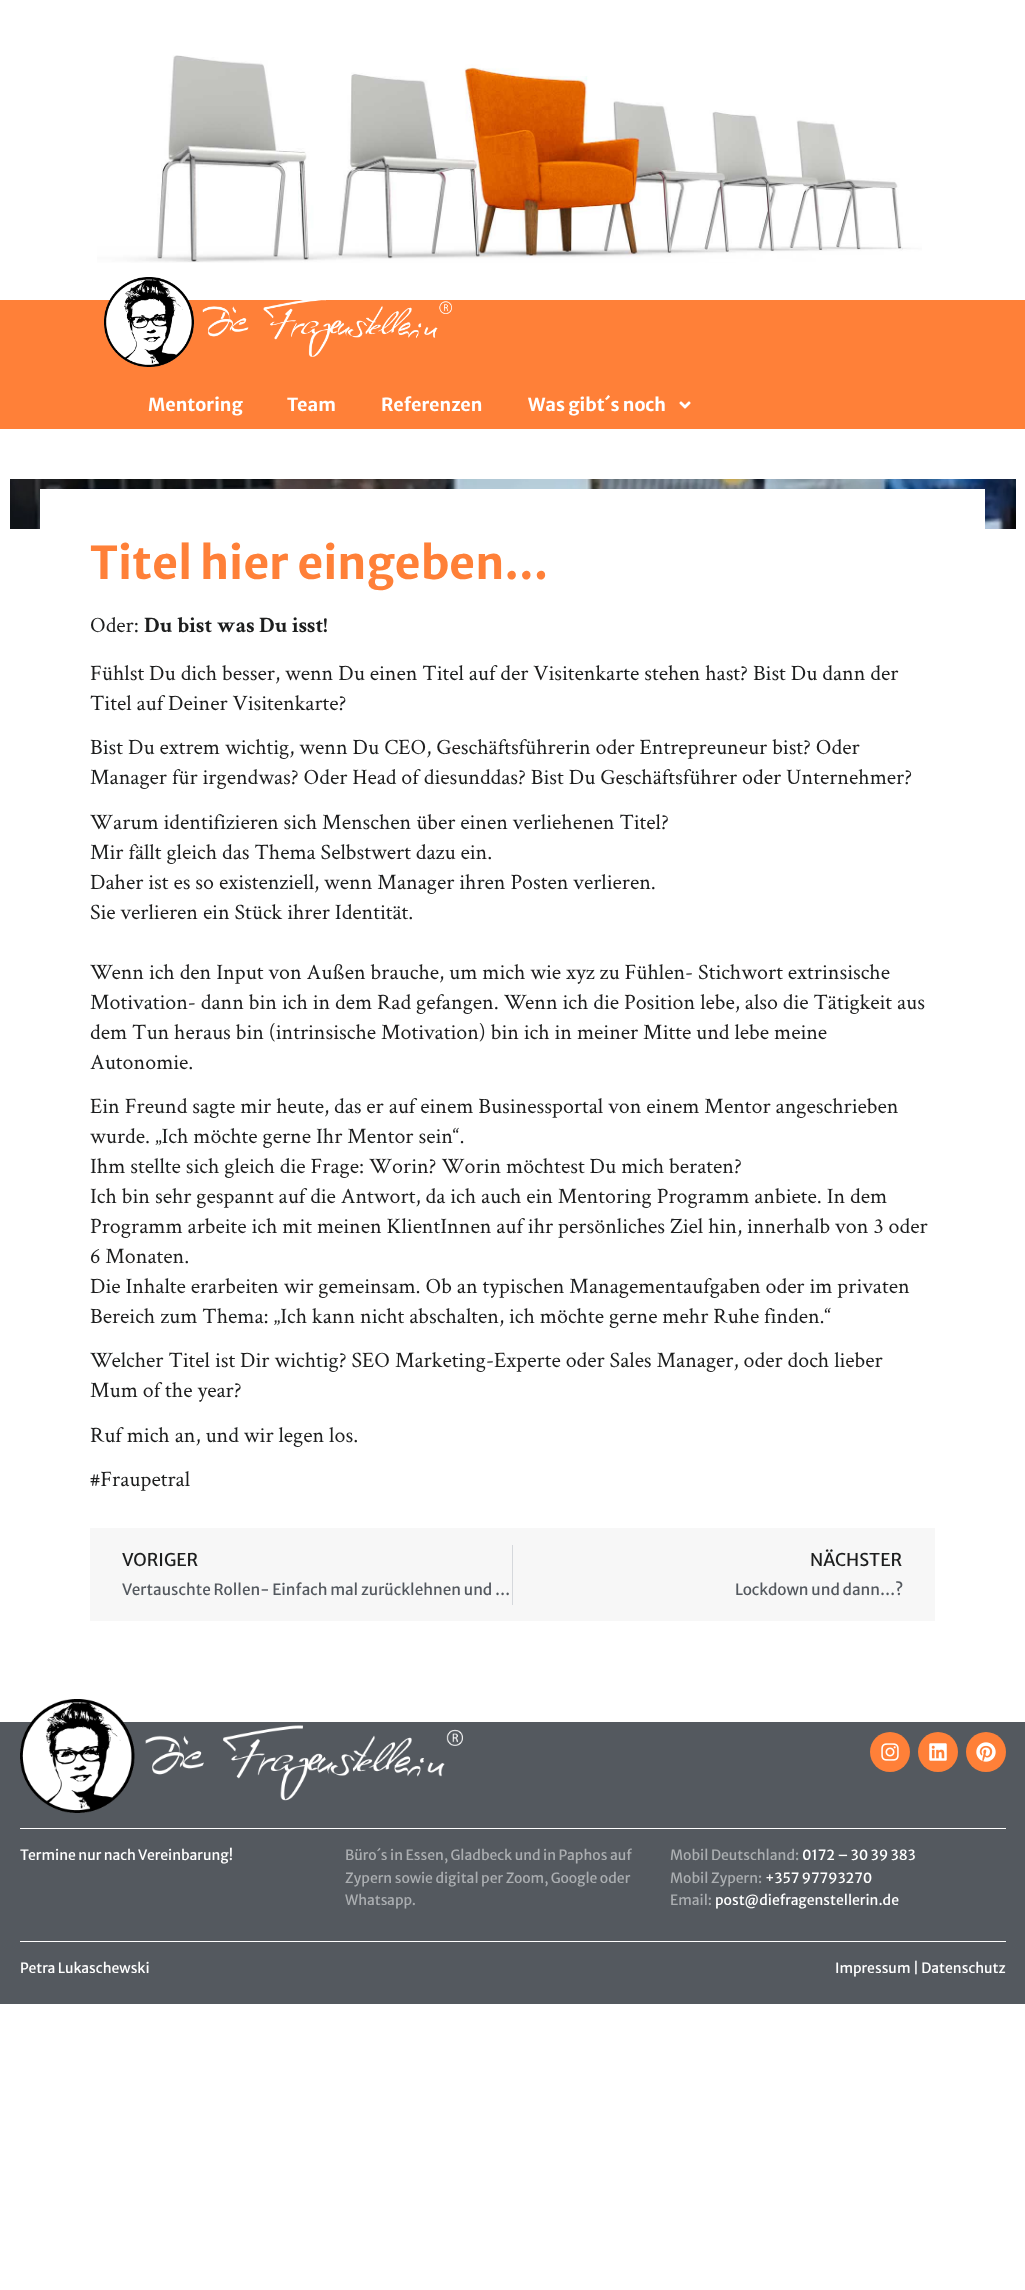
(async () => {
  const canvas = document.querySelector("canvas");
  canvas.width = 1025;
  canvas.height = 2290;
  const ctx = canvas.getContext("2d");
  ctx.miterLimit = 4;
  ctx.fontKerning = "normal";
  async function loadImage(src) {
    const img = new Image();
    img.src = src;
    await img.decode();
    return img;
  }

  ctx.fillStyle = "#ffffff";
  ctx.fillRect(0, 0, 1025, 2290);
  ctx.drawImage(await loadImage("img/1.png"), 97, 55, 825, 208);
  ctx.fillStyle = "#ff8038";
  ctx.fillRect(0, 300, 1025, 129);
  ctx.drawImage(await loadImage("img/2.png"), 104, 277, 348, 90);
  ctx.drawImage(await loadImage("img/3.png"), 679, 401, 12, 8);
  ctx.drawImage(await loadImage("img/4.png"), 10, 479, 1006, 50);
  for (const [x, y, w, h, color] of [
    [40, 489, 945, 40, "#ffffff"],
    [90, 1528, 845, 93, "#f7f7f7"],
    [512, 1545, 1, 60, "#d5d8dc"],
    [0, 1722, 1025, 282, "#54595f"],
  ]) {
    ctx.fillStyle = color;
    ctx.fillRect(x, y, w, h);
  }
  ctx.drawImage(await loadImage("img/5.png"), 20, 1699, 443, 114);
  ctx.fillStyle = "#ff8038";
  ctx.beginPath();
  ctx.arc(890, 1752, 20, 0, Math.PI * 2);
  ctx.fill();
  ctx.drawImage(await loadImage("img/6.png"), 881, 1743, 18, 18);
  ctx.beginPath();
  ctx.arc(938, 1752, 20, 0, Math.PI * 2);
  ctx.fill();
  ctx.drawImage(await loadImage("img/7.png"), 929, 1743, 18, 18);
  ctx.beginPath();
  ctx.arc(986, 1752, 20, 0, Math.PI * 2);
  ctx.fill();
  ctx.drawImage(await loadImage("img/8.png"), 976, 1742, 20, 20);
  ctx.fillStyle = "#ffffff";
  ctx.fillRect(20, 1828, 986, 1);
  ctx.fillRect(20, 1941, 986, 1);
  ctx.font = "bold 18px Merriweather Sans";
  for (const [text, x, y] of [
    ["Mentoring", 148, 411],
    ["Team", 287, 411],
    ["Referenzen", 381, 411],
    ["Was gibt´s noch", 528, 411],
  ]) {
    ctx.fillText(text, x, y);
  }
  ctx.font = "bold 45px Merriweather Sans";
  ctx.fillStyle = "#ff8038";
  ctx.fillText("Titel hier eingeben…", 90, 579);
  ctx.font = "22px Crimson Text";
  ctx.fillStyle = "#1d1e1e";
  ctx.fillText("Oder:", 90, 632);
  ctx.font = "bold 22px Crimson Text";
  ctx.fillText("Du bist was Du isst!", 144, 632);
  ctx.font = "22px Crimson Text";
  for (const [text, x, y] of [
    ["Fühlst Du dich besser, wenn Du einen Titel auf der Visitenkarte stehen hast? Bist Du dann der", 90, 680],
    ["Titel auf Deiner Visitenkarte?", 90, 710],
    ["Bist Du extrem wichtig, wenn Du CEO, Geschäftsführerin oder Entrepreuneur bist? Oder", 90, 754],
    ["Manager für irgendwas? Oder Head of diesunddas? Bist Du Geschäftsführer oder Unternehmer?", 90, 784],
    ["Warum identifizieren sich Menschen über einen verliehenen Titel?", 90, 829],
    ["Mir fällt gleich das Thema Selbstwert dazu ein.", 90, 859],
    ["Daher ist es so existenziell, wenn Manager ihren Posten verlieren.", 90, 889],
    ["Sie verlieren ein Stück ihrer Identität.", 90, 919],
    ["Wenn ich den Input von Außen brauche, um mich wie xyz zu Fühlen- Stichwort extrinsische", 90, 979],
    ["Motivation- dann bin ich in dem Rad gefangen. Wenn ich die Position lebe, also die Tätigkeit aus", 90, 1009],
    ["dem Tun heraus bin (intrinsische Motivation) bin ich in meiner Mitte und lebe meine", 90, 1039],
    ["Autonomie.", 90, 1069],
    ["Ein Freund sagte mir heute, das er auf einem Businessportal von einem Mentor angeschrieben", 90, 1113],
    ["wurde. „Ich möchte gerne Ihr Mentor sein“.", 90, 1143],
    ["Ihm stellte sich gleich die Frage: Worin? Worin möchtest Du mich beraten?", 90, 1173],
    ["Ich bin sehr gespannt auf die Antwort, da ich auch ein Mentoring Programm anbiete. In dem", 90, 1203],
    ["Programm arbeite ich mit meinen KlientInnen auf ihr persönliches Ziel hin, innerhalb von 3 oder", 90, 1233],
    ["6 Monaten.", 90, 1263],
    ["Die Inhalte erarbeiten wir gemeinsam. Ob an typischen Managementaufgaben oder im privaten", 90, 1293],
    ["Bereich zum Thema: „Ich kann nicht abschalten, ich möchte gerne mehr Ruhe finden.“", 90, 1323],
    ["Welcher Titel ist Dir wichtig? SEO Marketing-Experte oder Sales Manager, oder doch lieber", 90, 1367],
    ["Mum of the year?", 90, 1397],
    ["Ruf mich an, und wir legen los.", 90, 1442],
    ["#Fraupetral", 90, 1486],
  ]) {
    ctx.fillText(text, x, y);
  }
  ctx.font = "17.5px Merriweather Sans";
  ctx.fillText("VORIGER", 122, 1566);
  ctx.font = "15.4px Merriweather Sans";
  ctx.fillStyle = "#54595f";
  ctx.fillText("Vertauschte Rollen- Einfach mal zurücklehnen und …", 122, 1595);
  ctx.font = "17.5px Merriweather Sans";
  ctx.fillStyle = "#1d1e1e";
  ctx.fillText("NÄCHSTER", 810, 1566);
  ctx.font = "15.4px Merriweather Sans";
  ctx.fillStyle = "#54595f";
  ctx.fillText("Lockdown und dann…?", 735, 1595);
  ctx.font = "14px Merriweather Sans";
  ctx.fillStyle = "#ffffff";
  ctx.fillText("Termine nur nach Vereinbarung!", 20, 1860);
  ctx.fillStyle = "#abaeb1";
  for (const [text, x, y] of [
    ["Büro´s in Essen, Gladbeck und in Paphos auf", 345, 1860],
    ["Zypern sowie digital per Zoom, Google oder", 345, 1883],
    ["Whatsapp.", 345, 1905],
    ["Mobil Deutschland:", 670, 1860],
  ]) {
    ctx.fillText(text, x, y);
  }
  ctx.fillStyle = "#ffffff";
  ctx.fillText("0172 – 30 39 383", 802, 1860);
  ctx.fillStyle = "#abaeb1";
  ctx.fillText("Mobil Zypern:", 670, 1883);
  ctx.fillStyle = "#ffffff";
  ctx.fillText("+357 97793270", 765, 1883);
  ctx.fillStyle = "#abaeb1";
  ctx.fillText("Email:", 670, 1905);
  ctx.fillStyle = "#ffffff";
  for (const [text, x, y] of [
    ["post@diefragenstellerin.de", 715, 1905],
    ["Petra Lukaschewski", 20, 1973],
    ["Impressum | Datenschutz", 835, 1973],
  ]) {
    ctx.fillText(text, x, y);
  }
})();
